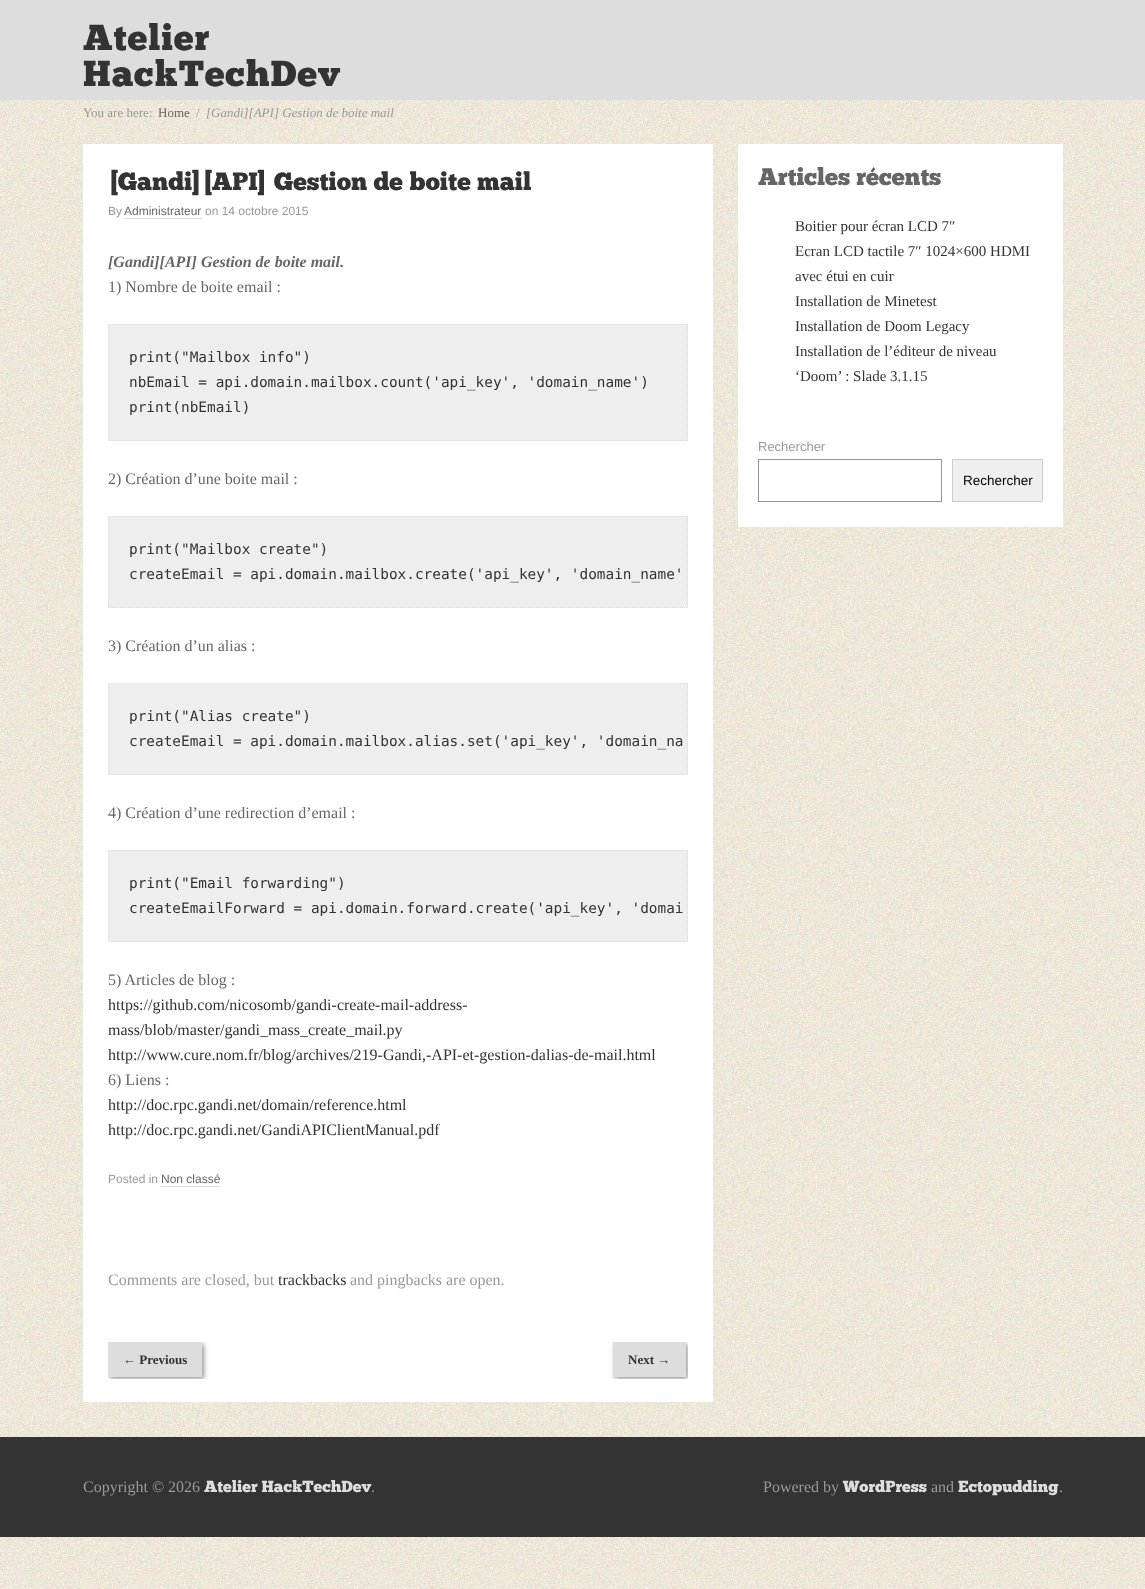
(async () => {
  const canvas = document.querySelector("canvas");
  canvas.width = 1145;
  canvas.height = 1589;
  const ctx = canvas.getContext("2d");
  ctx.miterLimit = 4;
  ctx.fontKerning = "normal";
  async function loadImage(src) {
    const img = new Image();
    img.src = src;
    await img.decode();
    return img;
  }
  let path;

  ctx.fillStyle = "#ffffff";
  ctx.fillRect(0, 0, 1145, 1589);
  ctx.drawImage(await loadImage("img/1.png"), 0, 100, 1145, 1489);
  for (const [x, y, w, h, color] of [
    [0, 0, 1145, 100, "#dddddd"],
    [83, 144, 630, 1258, "#ffffff"],
    [124, 218, 78, 1, "#dddddd"],
    [108, 324, 580, 117, "#eeeeee"],
  ]) {
    ctx.fillStyle = color;
    ctx.fillRect(x, y, w, h);
  }
  path = new Path2D("M108 324.5H688");
  ctx.strokeStyle = "#dddddd";
  ctx.setLineDash([1, 1]);
  ctx.stroke(path);
  path = new Path2D("M687.5 324V441");
  ctx.stroke(path);
  path = new Path2D("M108 440.5H688");
  ctx.stroke(path);
  path = new Path2D("M108.5 324V441");
  ctx.stroke(path);
  ctx.fillRect(108, 516, 580, 92);
  path = new Path2D("M108 516.5H688");
  ctx.stroke(path);
  path = new Path2D("M687.5 516V608");
  ctx.stroke(path);
  path = new Path2D("M108 607.5H688");
  ctx.stroke(path);
  path = new Path2D("M108.5 516V608");
  ctx.stroke(path);
  ctx.fillRect(108, 683, 580, 92);
  path = new Path2D("M108 683.5H688");
  ctx.stroke(path);
  path = new Path2D("M687.5 683V775");
  ctx.stroke(path);
  path = new Path2D("M108 774.5H688");
  ctx.stroke(path);
  path = new Path2D("M108.5 683V775");
  ctx.stroke(path);
  ctx.fillRect(108, 850, 580, 92);
  path = new Path2D("M108 850.5H688");
  ctx.stroke(path);
  path = new Path2D("M687.5 850V942");
  ctx.stroke(path);
  path = new Path2D("M108 941.5H688");
  ctx.stroke(path);
  path = new Path2D("M108.5 850V942");
  ctx.stroke(path);
  ctx.fillStyle = "#dddddd";
  ctx.fillRect(161, 1186, 59, 1);
  ctx.save();
  ctx.beginPath();
  ctx.rect(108, 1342, 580, 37);
  ctx.clip();
  ctx.fillStyle = "#999999";
  ctx.filter = "blur(2.5px)";
  ctx.beginPath();
  ctx.rect(110, 1344, 94, 35);
  ctx.fill();
  ctx.filter = "none";
  ctx.restore();
  ctx.fillRect(108, 1342, 94, 35);
  ctx.save();
  ctx.beginPath();
  ctx.rect(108, 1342, 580, 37);
  ctx.clip();
  ctx.fillStyle = "#999999";
  ctx.filter = "blur(2.5px)";
  ctx.beginPath();
  ctx.rect(615, 1344, 73, 35);
  ctx.fill();
  ctx.filter = "none";
  ctx.restore();
  ctx.fillRect(613, 1342, 73, 35);
  ctx.fillStyle = "#ffffff";
  ctx.fillRect(738, 144, 325, 383);
  ctx.strokeStyle = "#949494";
  ctx.setLineDash([]);
  ctx.strokeRect(758.5, 459.5, 183, 42);
  ctx.fillStyle = "#efefef";
  ctx.beginPath();
  ctx.rect(952.5, 459.5, 90, 42);
  ctx.fill();
  ctx.strokeStyle = "#cccccc";
  ctx.stroke();
  ctx.fillStyle = "#333333";
  ctx.fillRect(0, 1437, 1145, 100);
  ctx.letterSpacing = "1px";
  ctx.font = "36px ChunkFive";
  ctx.fillText("Atelier", 83, 50);
  ctx.fillText("HackTechDev", 83, 86);
  ctx.letterSpacing = "0px";
  ctx.font = "13px Liberation Serif";
  ctx.fillStyle = "#999999";
  ctx.fillText("You are here:", 83, 117);
  ctx.fillStyle = "#666666";
  ctx.fillText("Home", 158, 117);
  ctx.fillStyle = "#999999";
  ctx.fillText("/", 196, 117);
  ctx.font = "italic 13px Liberation Serif";
  ctx.fillText("[Gandi][API] Gestion de boite mail", 206, 117);
  ctx.font = "25px ChunkFive";
  ctx.fillStyle = "#333333";
  ctx.fillText("[Gandi][API] Gestion de boite mail", 108, 190);
  ctx.font = "12px Liberation Sans";
  ctx.fillStyle = "#999999";
  ctx.fillText("By", 108, 215);
  ctx.fillStyle = "#666666";
  ctx.fillText("Administrateur", 124, 215);
  ctx.fillStyle = "#999999";
  ctx.fillText("on 14 octobre 2015", 205, 215);
  ctx.font = "italic bold 16px Liberation Serif";
  ctx.fillStyle = "#666666";
  ctx.fillText("[Gandi][API] Gestion de boite mail.", 108, 267);
  ctx.font = "16px Liberation Serif";
  ctx.fillText("1) Nombre de boite email :", 108, 292);
  ctx.font = "14.4px DejaVu Sans Mono";
  ctx.fillStyle = "#333333";
  for (const [text, x, y] of [
    ["print(\"Mailbox info\")", 129, 362],
    ["nbEmail = api.domain.mailbox.count('api_key', 'domain_name')", 129, 387],
    ["print(nbEmail)", 129, 412],
  ]) {
    ctx.fillText(text, x, y);
  }
  ctx.font = "16px Liberation Serif";
  ctx.fillStyle = "#666666";
  ctx.fillText("2) Création d’une boite mail :", 108, 484);
  ctx.font = "14.4px DejaVu Sans Mono";
  ctx.fillStyle = "#333333";
  ctx.fillText("print(\"Mailbox create\")", 129, 554);
  ctx.fillText("createEmail = api.domain.mailbox.create('api_key', 'domain_name'", 129, 579);
  ctx.font = "16px Liberation Serif";
  ctx.fillStyle = "#666666";
  ctx.fillText("3) Création d’un alias :", 108, 651);
  ctx.font = "14.4px DejaVu Sans Mono";
  ctx.fillStyle = "#333333";
  ctx.fillText("print(\"Alias create\")", 129, 721);
  ctx.fillText("createEmail = api.domain.mailbox.alias.set('api_key', 'domain_na", 129, 746);
  ctx.font = "16px Liberation Serif";
  ctx.fillStyle = "#666666";
  ctx.fillText("4) Création d’une redirection d’email :", 108, 818);
  ctx.font = "14.4px DejaVu Sans Mono";
  ctx.fillStyle = "#333333";
  ctx.fillText("print(\"Email forwarding\")", 129, 888);
  ctx.fillText("createEmailForward = api.domain.forward.create('api_key', 'domai", 129, 913);
  ctx.font = "16px Liberation Serif";
  ctx.fillStyle = "#666666";
  ctx.fillText("5) Articles de blog :", 108, 985);
  ctx.fillStyle = "#333333";
  for (const [text, x, y] of [
    ["https://github.com/nicosomb/gandi-create-mail-address-", 108, 1010],
    ["mass/blob/master/gandi_mass_create_mail.py", 108, 1035],
    ["http://www.cure.nom.fr/blog/archives/219-Gandi,-API-et-gestion-dalias-de-mail.html", 108, 1060],
  ]) {
    ctx.fillText(text, x, y);
  }
  ctx.fillStyle = "#666666";
  ctx.fillText("6) Liens :", 108, 1085);
  ctx.fillStyle = "#333333";
  ctx.fillText("http://doc.rpc.gandi.net/domain/reference.html", 108, 1110);
  ctx.fillText("http://doc.rpc.gandi.net/GandiAPIClientManual.pdf", 108, 1135);
  ctx.font = "12px Liberation Sans";
  ctx.fillStyle = "#999999";
  ctx.fillText("Posted in", 108, 1183);
  ctx.fillStyle = "#666666";
  ctx.fillText("Non classé", 161, 1183);
  ctx.font = "16px Liberation Serif";
  ctx.fillStyle = "#999999";
  ctx.fillText("Comments are closed, but", 108, 1285);
  ctx.fillStyle = "#333333";
  ctx.fillText("trackbacks", 278, 1285);
  ctx.fillStyle = "#999999";
  ctx.fillText("and pingbacks are open.", 350, 1285);
  ctx.font = "bold 13px Liberation Serif";
  ctx.fillStyle = "#333333";
  ctx.fillText("← Previous", 123, 1364);
  ctx.fillText("Next →", 628, 1364);
  ctx.font = "24px ChunkFive";
  ctx.fillStyle = "#666666";
  ctx.fillText("Articles récents", 758, 185);
  ctx.font = "15px Liberation Serif";
  ctx.fillStyle = "#333333";
  for (const [text, x, y] of [
    ["Boitier pour écran LCD 7″", 795, 231],
    ["Ecran LCD tactile 7″ 1024×600 HDMI", 795, 256],
    ["avec étui en cuir", 795, 281],
    ["Installation de Minetest", 795, 306],
    ["Installation de Doom Legacy", 795, 331],
    ["Installation de l’éditeur de niveau", 795, 356],
    ["‘Doom’ : Slade 3.1.15", 795, 381],
  ]) {
    ctx.fillText(text, x, y);
  }
  ctx.font = "13px Liberation Sans";
  ctx.fillStyle = "#999999";
  ctx.fillText("Rechercher", 758, 451);
  ctx.font = "13.5px Liberation Sans";
  ctx.fillStyle = "#000000";
  ctx.fillText("Rechercher", 963, 485);
  ctx.font = "16px Liberation Serif";
  ctx.fillStyle = "#999999";
  ctx.fillText("Copyright © 2026", 83, 1492);
  ctx.font = "16px ChunkFive";
  ctx.fillStyle = "#dddddd";
  ctx.fillText("Atelier HackTechDev", 204, 1492);
  ctx.font = "16px Liberation Serif";
  ctx.fillStyle = "#999999";
  ctx.fillText(".", 371, 1492);
  ctx.fillText("Powered by", 763, 1492);
  ctx.font = "16px ChunkFive";
  ctx.fillStyle = "#dddddd";
  ctx.fillText("WordPress", 843, 1492);
  ctx.font = "16px Liberation Serif";
  ctx.fillStyle = "#999999";
  ctx.fillText("and", 931, 1492);
  ctx.font = "16px ChunkFive";
  ctx.fillStyle = "#dddddd";
  ctx.fillText("Ectopudding", 958, 1492);
  ctx.font = "16px Liberation Serif";
  ctx.fillStyle = "#999999";
  ctx.fillText(".", 1059, 1492);
})();
